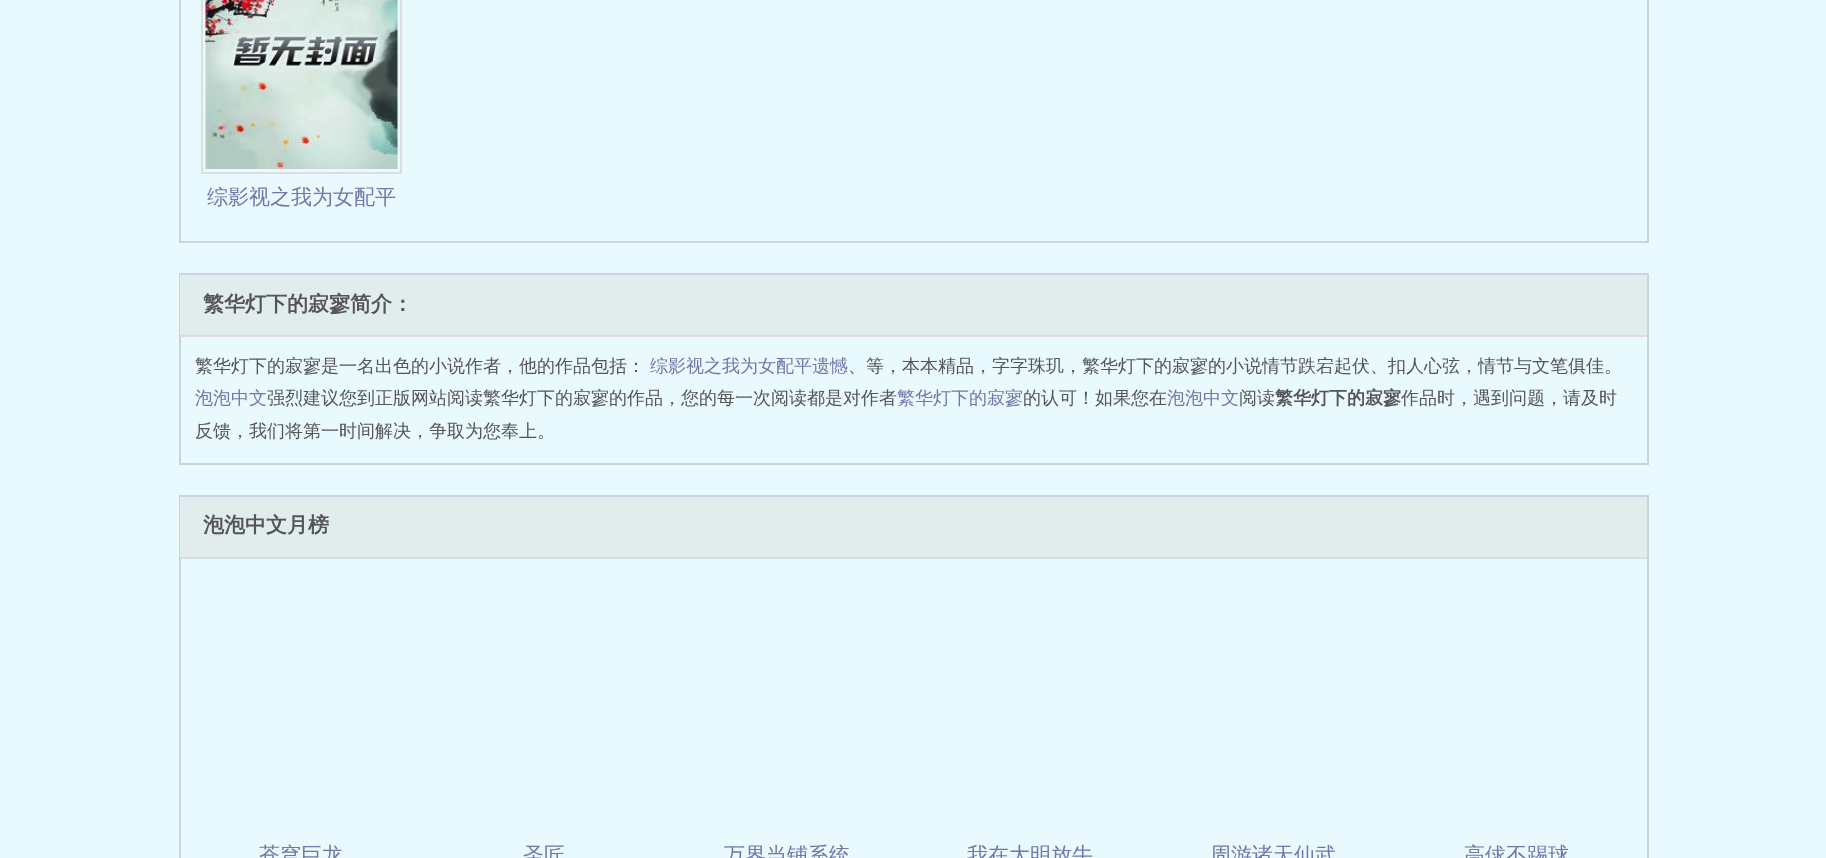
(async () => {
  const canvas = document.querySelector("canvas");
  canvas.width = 1826;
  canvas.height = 858;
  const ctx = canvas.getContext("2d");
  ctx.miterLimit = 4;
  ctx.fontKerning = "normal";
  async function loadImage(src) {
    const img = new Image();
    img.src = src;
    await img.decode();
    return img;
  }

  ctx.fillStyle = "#e9faff";
  ctx.fillRect(0, 0, 1826, 858);
  ctx.strokeStyle = "#c8d4e1";
  ctx.lineWidth = 2;
  ctx.strokeRect(180, -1, 1468, 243);
  ctx.strokeStyle = "#dddddd";
  ctx.strokeRect(202, -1, 199, 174);
  ctx.drawImage(await loadImage("img/1.png"), 205, 0, 193, 169);
  ctx.strokeStyle = "#c8d4e1";
  ctx.strokeRect(180, 274, 1468, 190);
  ctx.fillStyle = "#e1eced";
  ctx.fillRect(180, 275, 1467, 60);
  ctx.fillStyle = "#dddddd";
  ctx.fillRect(180, 335, 1467, 2);
  ctx.strokeRect(180, 496, 1468, 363);
  ctx.fillStyle = "#e1eced";
  ctx.fillRect(180, 497, 1467, 60);
  ctx.fillStyle = "#dddddd";
  ctx.fillRect(180, 557, 1467, 2);
  ctx.font = "500 21px WenQuanYi Zen Hei";
  ctx.fillStyle = "#6f78a7";
  ctx.fillText("综影视之我为女配平", 207, 204);
  ctx.font = "bold 21px WenQuanYi Zen Hei";
  ctx.fillStyle = "#555555";
  ctx.fillText("繁华灯下的寂寥简介：", 203, 311);
  ctx.font = "500 18px WenQuanYi Zen Hei";
  ctx.fillText("繁华灯下的寂寥是一名出色的小说作者，他的作品包括：", 195, 372);
  ctx.fillStyle = "#6f78a7";
  ctx.fillText("综影视之我为女配平遗憾", 650, 372);
  ctx.fillStyle = "#555555";
  ctx.fillText("、等，本本精品，字字珠玑，繁华灯下的寂寥的小说情节跌宕起伏、扣人心弦，情节与文笔俱佳。", 848, 372);
  ctx.fillStyle = "#6f78a7";
  ctx.fillText("泡泡中文", 195, 404);
  ctx.fillStyle = "#555555";
  ctx.fillText("强烈建议您到正版网站阅读繁华灯下的寂寥的作品，您的每一次阅读都是对作者", 267, 404);
  ctx.fillStyle = "#6f78a7";
  ctx.fillText("繁华灯下的寂寥", 897, 404);
  ctx.fillStyle = "#555555";
  ctx.fillText("的认可！如果您在", 1023, 404);
  ctx.fillStyle = "#6f78a7";
  ctx.fillText("泡泡中文", 1167, 404);
  ctx.fillStyle = "#555555";
  ctx.fillText("阅读", 1239, 404);
  ctx.font = "bold 18px WenQuanYi Zen Hei";
  ctx.fillText("繁华灯下的寂寥", 1275, 404);
  ctx.font = "500 18px WenQuanYi Zen Hei";
  ctx.fillText("作品时，遇到问题，请及时", 1401, 404);
  ctx.fillText("反馈，我们将第一时间解决，争取为您奉上。", 195, 437);
  ctx.font = "bold 21px WenQuanYi Zen Hei";
  ctx.fillText("泡泡中文月榜", 203, 532);
  ctx.font = "500 21px WenQuanYi Zen Hei";
  ctx.fillStyle = "#6f78a7";
  for (const [text, x, y] of [
    ["苍穹巨龙", 259, 862],
    ["圣匠", 523, 862],
    ["万界当铺系统", 724, 862],
    ["我在大明放牛", 967, 862],
    ["周游诸天仙武", 1210, 862],
    ["高俅不踢球", 1464, 862],
  ]) {
    ctx.fillText(text, x, y);
  }
})();
